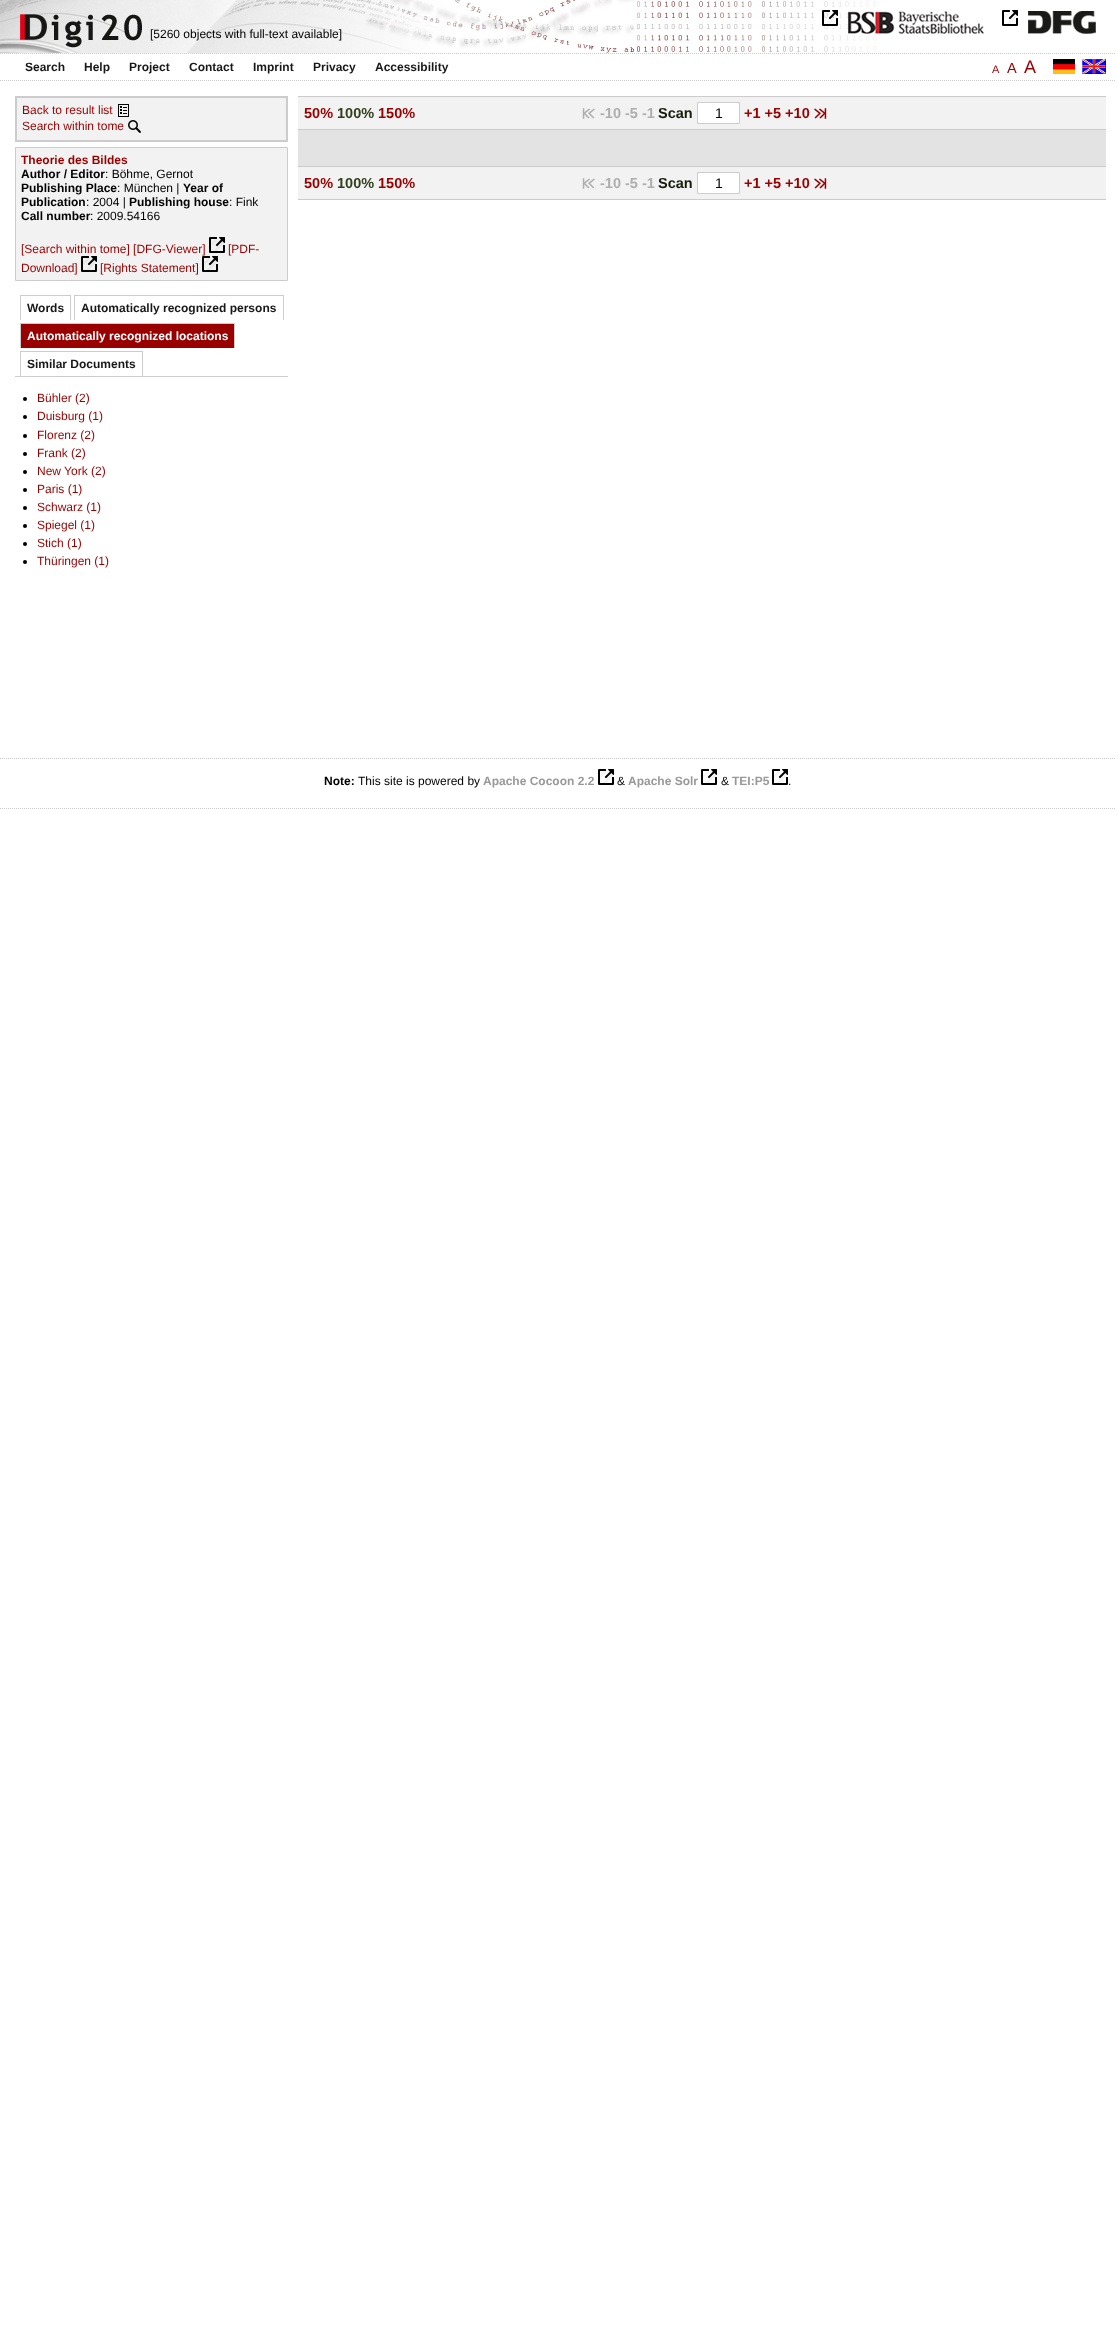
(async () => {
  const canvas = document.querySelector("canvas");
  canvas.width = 1117;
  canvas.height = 2334;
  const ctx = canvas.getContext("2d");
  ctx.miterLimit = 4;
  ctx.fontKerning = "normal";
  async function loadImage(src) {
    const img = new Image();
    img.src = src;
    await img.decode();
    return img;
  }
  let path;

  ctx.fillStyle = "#ffffff";
  ctx.fillRect(0, 0, 1117, 2334);
  ctx.drawImage(await loadImage("img/1.png"), 0, 0, 877, 53);
  ctx.drawImage(await loadImage("img/2.png"), 848, 10, 136, 24);
  ctx.drawImage(await loadImage("img/3.png"), 822, 10, 16, 16);
  ctx.drawImage(await loadImage("img/4.png"), 1028, 11, 68, 23);
  ctx.drawImage(await loadImage("img/5.png"), 1002, 10, 16, 16);
  path = new Path2D("M0 53.5H1116");
  ctx.strokeStyle = "#cccccc";
  ctx.setLineDash([1, 1]);
  ctx.stroke(path);
  path = new Path2D("M0 80.5H1116");
  ctx.stroke(path);
  ctx.drawImage(await loadImage("img/6.png"), 1053, 59, 22, 15);
  ctx.drawImage(await loadImage("img/7.png"), 1082, 59, 24, 15);
  ctx.fillStyle = "#f2f2f2";
  ctx.beginPath();
  ctx.rect(16, 97, 271, 44);
  ctx.fill();
  ctx.lineWidth = 2;
  ctx.setLineDash([]);
  ctx.stroke();
  ctx.drawImage(await loadImage("img/8.png"), 118, 104, 11, 13);
  ctx.drawImage(await loadImage("img/9.png"), 128, 120, 13, 13);
  ctx.beginPath();
  ctx.rect(15.5, 147.5, 272, 133);
  ctx.fill();
  ctx.lineWidth = 1;
  ctx.stroke();
  ctx.drawImage(await loadImage("img/10.png"), 209, 237, 16, 16);
  ctx.drawImage(await loadImage("img/10.png"), 81, 256, 16, 16);
  ctx.drawImage(await loadImage("img/10.png"), 202, 256, 16, 16);
  for (const [x, y, w, h, color] of [
    [15, 376, 273, 1, "#cccccc"],
    [20, 295, 51, 1, "#cccccc"],
    [70, 295, 1, 25, "#cccccc"],
    [20, 295, 1, 25, "#cccccc"],
    [74, 295, 210, 1, "#cccccc"],
    [283, 295, 1, 25, "#cccccc"],
    [74, 295, 1, 25, "#cccccc"],
    [21, 324, 213, 24, "#990000"],
    [20, 323, 215, 1, "#cccccc"],
    [234, 323, 1, 25, "#cccccc"],
    [20, 323, 1, 25, "#cccccc"],
    [20, 351, 123, 1, "#cccccc"],
    [142, 351, 1, 25, "#cccccc"],
    [20, 351, 1, 25, "#cccccc"],
  ]) {
    ctx.fillStyle = color;
    ctx.fillRect(x, y, w, h);
  }
  ctx.fillStyle = "#000000";
  ctx.beginPath();
  ctx.arc(25, 399, 2, 0, Math.PI * 2);
  ctx.fill();
  ctx.beginPath();
  ctx.arc(25, 417, 2, 0, Math.PI * 2);
  ctx.fill();
  ctx.beginPath();
  ctx.arc(25, 436, 2, 0, Math.PI * 2);
  ctx.fill();
  ctx.beginPath();
  ctx.arc(25, 454, 2, 0, Math.PI * 2);
  ctx.fill();
  ctx.beginPath();
  ctx.arc(25, 472, 2, 0, Math.PI * 2);
  ctx.fill();
  ctx.beginPath();
  ctx.arc(25, 490, 2, 0, Math.PI * 2);
  ctx.fill();
  ctx.beginPath();
  ctx.arc(25, 508, 2, 0, Math.PI * 2);
  ctx.fill();
  ctx.beginPath();
  ctx.arc(25, 526, 2, 0, Math.PI * 2);
  ctx.fill();
  ctx.beginPath();
  ctx.arc(25, 544, 2, 0, Math.PI * 2);
  ctx.fill();
  ctx.beginPath();
  ctx.arc(25, 562, 2, 0, Math.PI * 2);
  ctx.fill();
  for (const [x, y, w, h, color] of [
    [298, 97, 808, 32, "#f2f2f2"],
    [298, 96, 808, 1, "#cccccc"],
    [298, 129, 808, 1, "#cccccc"],
  ]) {
    ctx.fillStyle = color;
    ctx.fillRect(x, y, w, h);
  }
  ctx.drawImage(await loadImage("img/11.png"), 582, 108, 13, 11);
  ctx.fillStyle = "#ffffff";
  ctx.beginPath();
  ctx.rect(697.5, 102.5, 42, 21);
  ctx.fill();
  ctx.stroke();
  ctx.drawImage(await loadImage("img/12.png"), 814, 108, 13, 11);
  for (const [x, y, w, h, color] of [
    [298, 130, 808, 36, "#e3e3e3"],
    [298, 167, 808, 32, "#f2f2f2"],
    [298, 166, 808, 1, "#cccccc"],
    [298, 199, 808, 1, "#cccccc"],
  ]) {
    ctx.fillStyle = color;
    ctx.fillRect(x, y, w, h);
  }
  ctx.drawImage(await loadImage("img/11.png"), 582, 178, 13, 11);
  ctx.fillStyle = "#ffffff";
  ctx.beginPath();
  ctx.rect(697.5, 172.5, 42, 21);
  ctx.fill();
  ctx.stroke();
  ctx.drawImage(await loadImage("img/12.png"), 814, 178, 13, 11);
  path = new Path2D("M0 758.5H1116");
  ctx.setLineDash([1, 1]);
  ctx.stroke(path);
  path = new Path2D("M0 808.5H1116");
  ctx.stroke(path);
  ctx.drawImage(await loadImage("img/5.png"), 598, 769, 16, 16);
  ctx.drawImage(await loadImage("img/5.png"), 701, 769, 16, 16);
  ctx.drawImage(await loadImage("img/5.png"), 772, 769, 16, 16);
  ctx.font = "12px Liberation Sans";
  ctx.fillStyle = "#000000";
  ctx.fillText("[5260 objects with full-text available]", 150, 38);
  ctx.font = "bold 12px Liberation Sans";
  ctx.fillStyle = "#181818";
  for (const [text, x, y] of [
    ["Search", 25, 71],
    ["Help", 84, 71],
    ["Project", 129, 71],
    ["Contact", 189, 71],
    ["Imprint", 253, 71],
    ["Privacy", 313, 71],
    ["Accessibility", 375, 71],
  ]) {
    ctx.fillText(text, x, y);
  }
  ctx.font = "11px Liberation Sans";
  ctx.fillStyle = "#990000";
  ctx.fillText("A", 992, 73);
  ctx.font = "14.5px Liberation Sans";
  ctx.fillText("A", 1007, 73);
  ctx.font = "18px Liberation Sans";
  ctx.fillText("A", 1024, 73);
  ctx.font = "12px Liberation Sans";
  ctx.fillText("Back to result list", 22, 114);
  ctx.fillText("Search within tome", 22, 130);
  ctx.font = "bold 12px Liberation Sans";
  ctx.fillText("Theorie des Bildes", 21, 164);
  ctx.fillStyle = "#000000";
  ctx.fillText("Author / Editor", 21, 178);
  ctx.font = "12px Liberation Sans";
  ctx.fillText(": Böhme, Gernot", 105, 178);
  ctx.font = "bold 12px Liberation Sans";
  ctx.fillText("Publishing Place", 21, 192);
  ctx.font = "12px Liberation Sans";
  ctx.fillText(": München |", 117, 192);
  ctx.font = "bold 12px Liberation Sans";
  ctx.fillText("Year of", 183, 192);
  ctx.fillText("Publication", 21, 206);
  ctx.font = "12px Liberation Sans";
  ctx.fillText(": 2004 |", 86, 206);
  ctx.font = "bold 12px Liberation Sans";
  ctx.fillText("Publishing house", 129, 206);
  ctx.font = "12px Liberation Sans";
  ctx.fillText(": Fink", 229, 206);
  ctx.font = "bold 12px Liberation Sans";
  ctx.fillText("Call number", 21, 220);
  ctx.font = "12px Liberation Sans";
  ctx.fillText(": 2009.54166", 90, 220);
  ctx.fillStyle = "#990000";
  for (const [text, x, y] of [
    ["[Search within tome] [DFG-Viewer]", 21, 253],
    ["[PDF-", 228, 253],
    ["Download]", 21, 272],
    ["[Rights Statement]", 100, 272],
  ]) {
    ctx.fillText(text, x, y);
  }
  ctx.font = "bold 12px Liberation Sans";
  ctx.fillStyle = "#181818";
  ctx.fillText("Words", 27, 312);
  ctx.fillText("Automatically recognized persons", 81, 312);
  ctx.fillStyle = "#ffffff";
  ctx.fillText("Automatically recognized locations", 27, 340);
  ctx.fillStyle = "#181818";
  ctx.fillText("Similar Documents", 27, 368);
  ctx.font = "12px Liberation Sans";
  ctx.fillStyle = "#990000";
  for (const [text, x, y] of [
    ["Bühler (2)", 37, 402],
    ["Duisburg (1)", 37, 420],
    ["Florenz (2)", 37, 439],
    ["Frank (2)", 37, 457],
    ["New York (2)", 37, 475],
    ["Paris (1)", 37, 493],
    ["Schwarz (1)", 37, 511],
    ["Spiegel (1)", 37, 529],
    ["Stich (1)", 37, 547],
    ["Thüringen (1)", 37, 565],
  ]) {
    ctx.fillText(text, x, y);
  }
  ctx.font = "bold 14.5px Liberation Sans";
  ctx.fillText("50%", 304, 118);
  ctx.fillStyle = "#333f1d";
  ctx.fillText("100%", 337, 118);
  ctx.fillStyle = "#990000";
  ctx.fillText("150%", 378, 118);
  ctx.fillStyle = "#aeaeae";
  ctx.fillText("-10 -5 -1", 600, 118);
  ctx.fillStyle = "#171c0d";
  ctx.fillText("Scan", 658, 118);
  ctx.font = "14px Liberation Sans";
  ctx.fillStyle = "#000000";
  ctx.fillText("1", 715, 118);
  ctx.font = "bold 14.5px Liberation Sans";
  ctx.fillStyle = "#990000";
  ctx.fillText("+1 +5 +10", 744, 118);
  ctx.fillText("50%", 304, 188);
  ctx.fillStyle = "#333f1d";
  ctx.fillText("100%", 337, 188);
  ctx.fillStyle = "#990000";
  ctx.fillText("150%", 378, 188);
  ctx.fillStyle = "#aeaeae";
  ctx.fillText("-10 -5 -1", 600, 188);
  ctx.fillStyle = "#171c0d";
  ctx.fillText("Scan", 658, 188);
  ctx.font = "14px Liberation Sans";
  ctx.fillStyle = "#000000";
  ctx.fillText("1", 715, 188);
  ctx.font = "bold 14.5px Liberation Sans";
  ctx.fillStyle = "#990000";
  ctx.fillText("+1 +5 +10", 744, 188);
  ctx.font = "bold 12px Liberation Sans";
  ctx.fillStyle = "#000000";
  ctx.fillText("Note:", 324, 785);
  ctx.font = "12px Liberation Sans";
  ctx.fillText("This site is powered by", 358, 785);
  ctx.font = "bold 12px Liberation Sans";
  ctx.fillStyle = "#999999";
  ctx.fillText("Apache Cocoon 2.2", 483, 785);
  ctx.font = "12px Liberation Sans";
  ctx.fillStyle = "#000000";
  ctx.fillText("&", 617, 785);
  ctx.font = "bold 12px Liberation Sans";
  ctx.fillStyle = "#999999";
  ctx.fillText("Apache Solr", 628, 785);
  ctx.font = "12px Liberation Sans";
  ctx.fillStyle = "#000000";
  ctx.fillText("&", 721, 785);
  ctx.font = "bold 12px Liberation Sans";
  ctx.fillStyle = "#999999";
  ctx.fillText("TEI:P5", 732, 785);
  ctx.font = "12px Liberation Sans";
  ctx.fillStyle = "#000000";
  ctx.fillText(".", 788, 785);
})();
